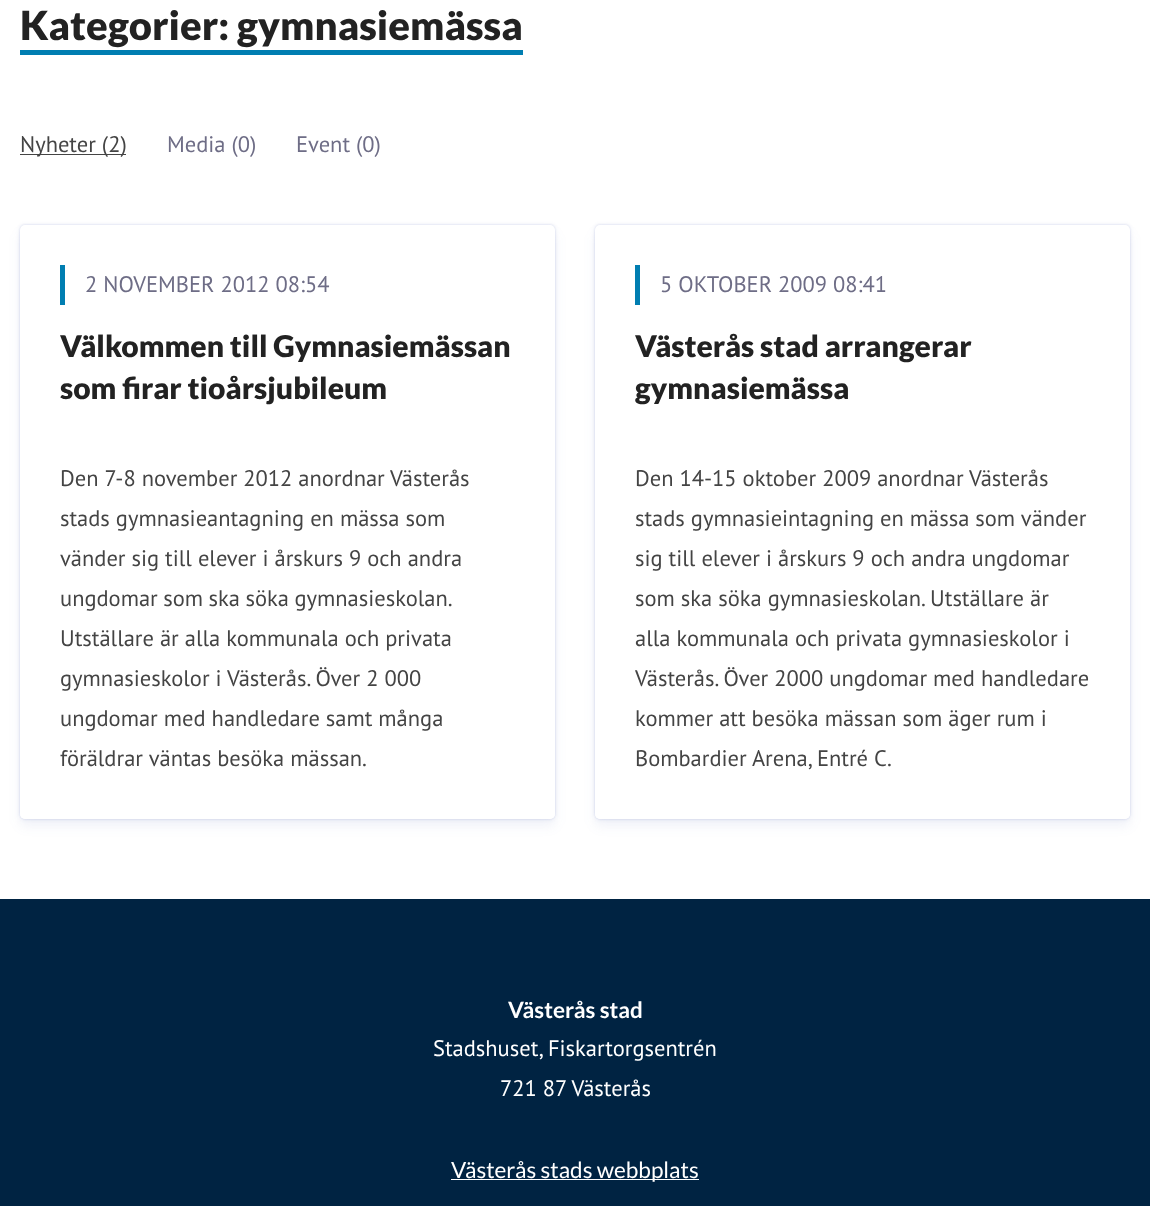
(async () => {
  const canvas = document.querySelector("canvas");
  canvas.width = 1150;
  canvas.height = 1206;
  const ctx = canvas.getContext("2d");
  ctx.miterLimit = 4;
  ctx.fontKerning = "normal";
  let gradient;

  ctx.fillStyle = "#ffffff";
  ctx.fillRect(0, 0, 1150, 1206);
  ctx.fillStyle = "#007eb1";
  ctx.fillRect(20, 50, 503, 5);
  ctx.fillStyle = "#444444";
  ctx.fillRect(20, 154, 106, 1);
  ctx.fillStyle = "rgba(49, 73, 164, 0.14)";
  ctx.filter = "blur(1px)";
  ctx.beginPath();
  ctx.roundRect(20, 225, 535, 594, 5);
  ctx.fill();
  ctx.filter = "none";
  ctx.fillStyle = "rgba(49, 73, 164, 0.1)";
  ctx.filter = "blur(2px)";
  ctx.beginPath();
  ctx.roundRect(20, 225, 535, 594, 5);
  ctx.fill();
  ctx.filter = "none";
  ctx.fillStyle = "rgba(49, 73, 164, 0.08)";
  ctx.filter = "blur(6px)";
  ctx.beginPath();
  ctx.roundRect(20, 233, 535, 593, 5);
  ctx.fill();
  ctx.filter = "none";
  ctx.fillStyle = "#ffffff";
  ctx.beginPath();
  ctx.roundRect(20, 225, 535, 594, 5);
  ctx.fill();
  ctx.fillStyle = "#007eb1";
  ctx.fillRect(60, 265, 5, 40);
  gradient = ctx.createLinearGradient(288, 783, 288, 863);
  gradient.addColorStop(0, "rgba(255, 255, 255, 0)");
  gradient.addColorStop(0.25, "rgba(255, 255, 255, 0.7)");
  gradient.addColorStop(0.5, "#ffffff");
  ctx.fillStyle = gradient;
  ctx.beginPath();
  ctx.roundRect(20, 783, 535, 36, [0, 0, 5, 5]);
  ctx.fill();
  ctx.fillStyle = "rgba(49, 73, 164, 0.14)";
  ctx.filter = "blur(1px)";
  ctx.beginPath();
  ctx.roundRect(595, 225, 535, 594, 5);
  ctx.fill();
  ctx.filter = "none";
  ctx.fillStyle = "rgba(49, 73, 164, 0.1)";
  ctx.filter = "blur(2px)";
  ctx.beginPath();
  ctx.roundRect(595, 225, 535, 594, 5);
  ctx.fill();
  ctx.filter = "none";
  ctx.fillStyle = "rgba(49, 73, 164, 0.08)";
  ctx.filter = "blur(6px)";
  ctx.beginPath();
  ctx.roundRect(595, 233, 535, 593, 5);
  ctx.fill();
  ctx.filter = "none";
  ctx.fillStyle = "#ffffff";
  ctx.beginPath();
  ctx.roundRect(595, 225, 535, 594, 5);
  ctx.fill();
  ctx.fillStyle = "#007eb1";
  ctx.fillRect(635, 265, 5, 40);
  gradient = ctx.createLinearGradient(863, 783, 863, 863);
  gradient.addColorStop(0, "rgba(255, 255, 255, 0)");
  gradient.addColorStop(0.25, "rgba(255, 255, 255, 0.7)");
  gradient.addColorStop(0.5, "#ffffff");
  ctx.fillStyle = gradient;
  ctx.beginPath();
  ctx.roundRect(595, 783, 535, 36, [0, 0, 5, 5]);
  ctx.fill();
  ctx.fillStyle = "#002342";
  ctx.fillRect(0, 899, 1150, 307);
  ctx.fillStyle = "#ffffff";
  ctx.fillRect(451, 1179, 248, 1);
  ctx.font = "900 40px Lato";
  ctx.fillStyle = "#222222";
  ctx.fillText("Kategorier: gymnasiemässa", 20, 40);
  ctx.font = "22.5px PT Sans";
  ctx.fillStyle = "#444444";
  ctx.fillText("Nyheter (2)", 20, 152);
  ctx.fillStyle = "#6e6d86";
  for (const [text, x, y] of [
    ["Media (0)", 167, 152],
    ["Event (0)", 296, 152],
    ["2 NOVEMBER 2012 08:54", 85, 292],
  ]) {
    ctx.fillText(text, x, y);
  }
  ctx.font = "900 30px Lato";
  ctx.fillStyle = "#222222";
  ctx.fillText("Välkommen till Gymnasiemässan", 60, 357);
  ctx.fillText("som firar tioårsjubileum", 60, 399);
  ctx.font = "22.5px PT Sans";
  ctx.fillStyle = "#444444";
  for (const [text, x, y] of [
    ["Den 7-8 november 2012 anordnar Västerås", 60, 486],
    ["stads gymnasieantagning en mässa som", 60, 526],
    ["vänder sig till elever i årskurs 9 och andra", 60, 566],
  ]) {
    ctx.fillText(text, x, y);
  }
  ctx.wordSpacing = "-0.5px";
  ctx.fillText("ungdomar som ska söka gymnasieskolan.", 60, 606);
  ctx.wordSpacing = "0px";
  for (const [text, x, y] of [
    ["Utställare är alla kommunala och privata", 60, 646],
    ["gymnasieskolor i Västerås. Över 2 000", 60, 686],
    ["ungdomar med handledare samt många", 60, 726],
    ["föräldrar väntas besöka mässan.", 60, 766],
  ]) {
    ctx.fillText(text, x, y);
  }
  ctx.fillStyle = "#6e6d86";
  ctx.fillText("5 OKTOBER 2009 08:41", 660, 292);
  ctx.font = "900 30px Lato";
  ctx.fillStyle = "#222222";
  ctx.fillText("Västerås stad arrangerar", 635, 357);
  ctx.fillText("gymnasiemässa", 635, 399);
  ctx.font = "22.5px PT Sans";
  ctx.fillStyle = "#444444";
  for (const [text, x, y] of [
    ["Den 14-15 oktober 2009 anordnar Västerås", 635, 486],
    ["stads gymnasieintagning en mässa som vänder", 635, 526],
    ["sig till elever i årskurs 9 och andra ungdomar", 635, 566],
    ["som ska söka gymnasieskolan. Utställare är", 635, 606],
    ["alla kommunala och privata gymnasieskolor i", 635, 646],
    ["Västerås. Över 2000 ungdomar med handledare", 635, 686],
    ["kommer att besöka mässan som äger rum i", 635, 726],
    ["Bombardier Arena, Entré C.", 635, 766],
  ]) {
    ctx.fillText(text, x, y);
  }
  ctx.font = "bold 22.5px Lato";
  ctx.fillStyle = "#ffffff";
  ctx.fillText("Västerås stad", 508, 1018);
  ctx.font = "22.5px PT Sans";
  ctx.fillText("Stadshuset, Fiskartorgsentrén", 433, 1056);
  ctx.fillText("721 87 Västerås", 500, 1096);
  ctx.font = "22.5px Lato";
  ctx.fillText("Västerås stads webbplats", 451, 1178);
})();
